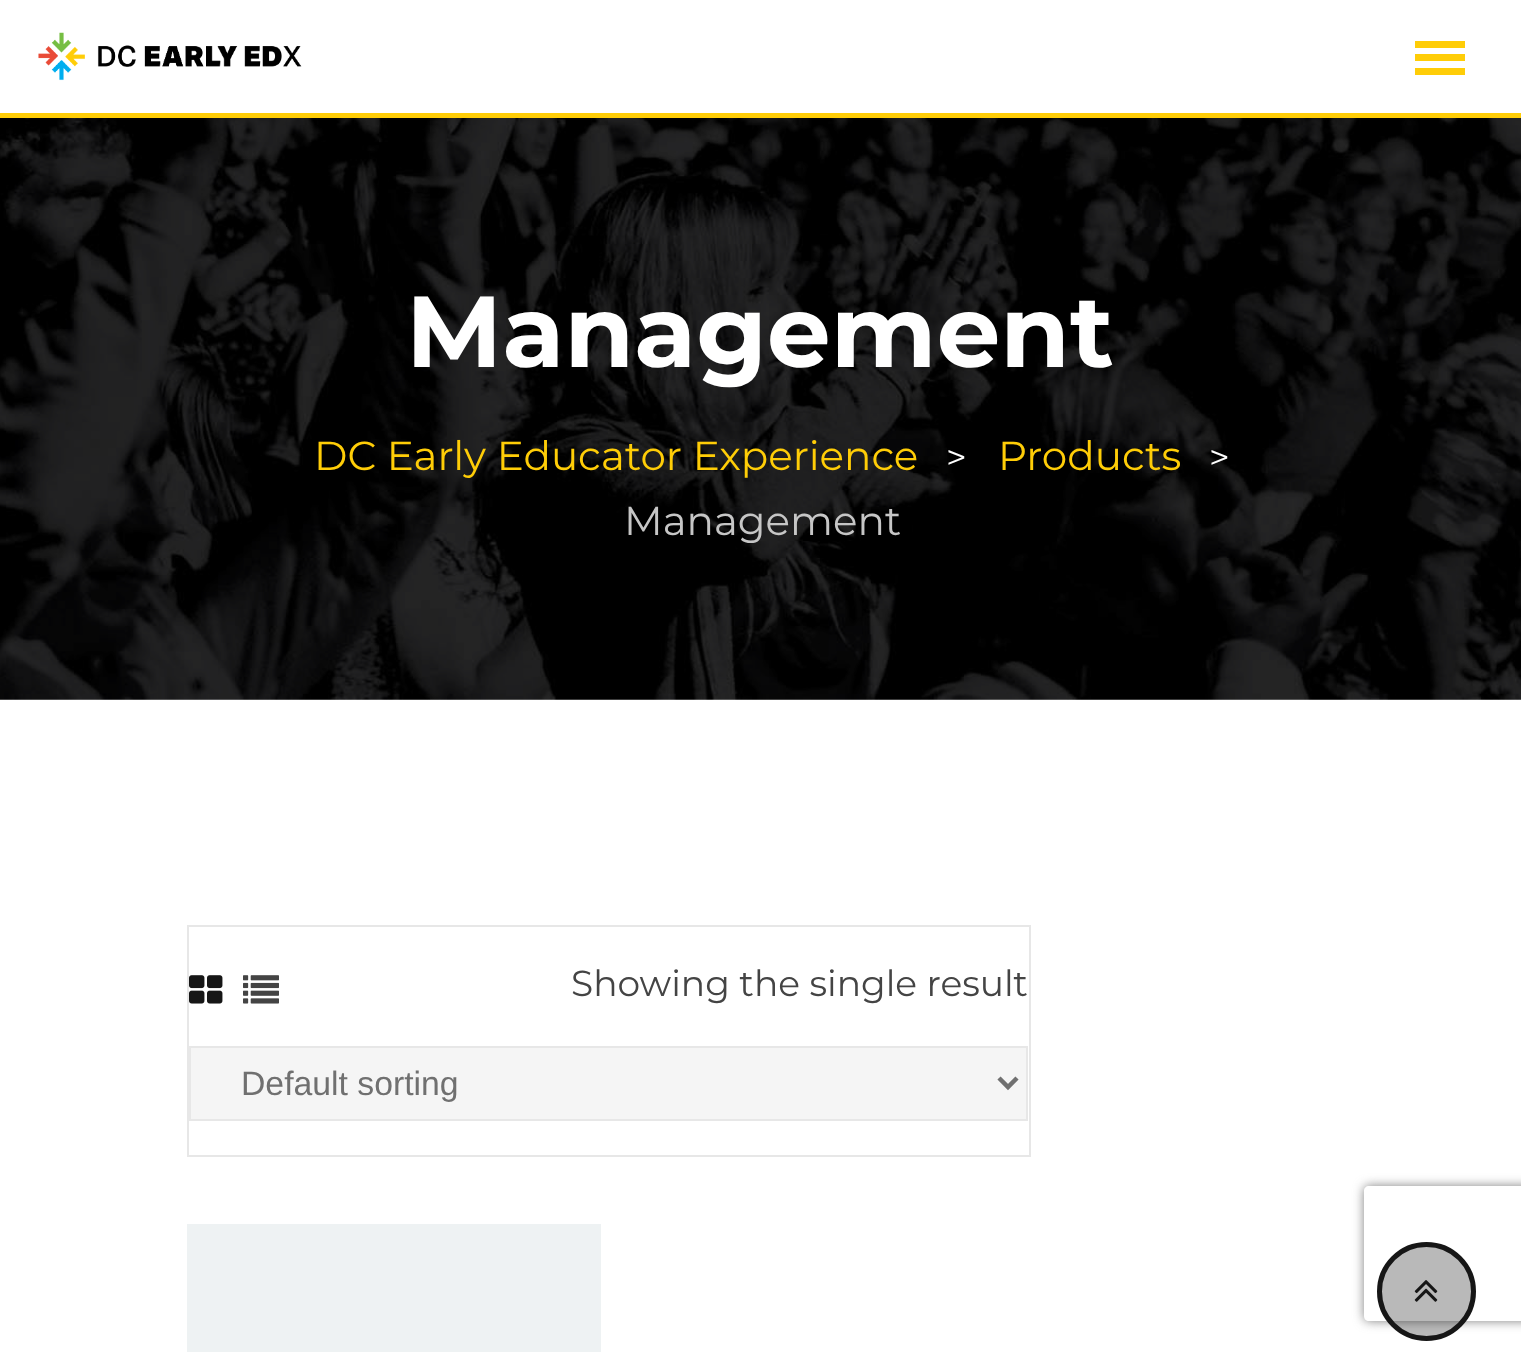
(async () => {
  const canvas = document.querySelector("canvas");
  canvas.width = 1521;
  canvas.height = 1352;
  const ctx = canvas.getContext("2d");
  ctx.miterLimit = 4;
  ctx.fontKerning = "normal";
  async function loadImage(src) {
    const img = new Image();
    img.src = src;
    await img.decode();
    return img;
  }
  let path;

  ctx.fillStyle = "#ffffff";
  ctx.fillRect(0, 0, 1521, 1352);
  ctx.fillStyle = "#ffcd07";
  ctx.fillRect(0, 113, 1521, 5);
  ctx.drawImage(await loadImage("img/1.png"), 38, 32, 264, 49);
  for (const [x, y, w, h, color] of [
    [1415, 41, 50, 7, "#ffcd07"],
    [1415, 54, 50, 7, "#ffcd07"],
    [1415, 68, 50, 7, "#ffcd07"],
  ]) {
    ctx.fillStyle = color;
    ctx.fillRect(x, y, w, h);
  }
  ctx.drawImage(await loadImage("img/2.png"), 0, 118, 1521, 582);
  ctx.strokeStyle = "#e7e7e7";
  ctx.lineWidth = 2;
  ctx.strokeRect(188, 926, 842, 230);
  ctx.drawImage(await loadImage("img/3.png"), 189, 975, 34, 29);
  ctx.drawImage(await loadImage("img/4.png"), 243, 975, 36, 29);
  ctx.fillStyle = "#f5f5f5";
  ctx.beginPath();
  ctx.rect(190, 1047, 837, 73);
  ctx.fill();
  ctx.stroke();
  path = new Path2D("M999 1078L1008 1087L1017 1078");
  ctx.strokeStyle = "#707070";
  ctx.lineWidth = 4.5;
  ctx.stroke(path);
  ctx.fillStyle = "#eef2f3";
  ctx.fillRect(187, 1224, 414, 128);
  ctx.save();
  path = new Path2D("M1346 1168H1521V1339H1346ZM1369 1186H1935C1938 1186 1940 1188 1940 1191V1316C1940 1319 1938 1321 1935 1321H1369C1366 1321 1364 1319 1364 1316V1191C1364 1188 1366 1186 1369 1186Z");
  ctx.clip(path, "evenodd");
  ctx.fillStyle = "#808080";
  ctx.filter = "blur(5.5px)";
  ctx.beginPath();
  ctx.roundRect(1364, 1186, 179, 135, 5);
  ctx.fill();
  ctx.filter = "none";
  ctx.restore();
  ctx.fillStyle = "rgba(22, 22, 22, 0.3)";
  ctx.beginPath();
  ctx.arc(1426.5, 1291.5, 47, 0, Math.PI * 2);
  ctx.fill();
  ctx.strokeStyle = "#161616";
  ctx.lineWidth = 5;
  ctx.stroke();
  ctx.drawImage(await loadImage("img/5.png"), 1414, 1280, 24, 22);
  ctx.font = "bold 100.75px Montserrat";
  ctx.fillStyle = "#ffffff";
  ctx.fillText("Management", 406, 367);
  ctx.font = "40.5px Montserrat";
  ctx.fillStyle = "#ffcd07";
  ctx.fillText("DC Early Educator Experience", 314, 470);
  ctx.font = "36px Montserrat";
  ctx.fillStyle = "#ffffff";
  ctx.fillText(">", 946, 470);
  ctx.font = "40.5px Montserrat";
  ctx.fillStyle = "#ffcd07";
  ctx.fillText("Products", 998, 470);
  ctx.font = "36px Montserrat";
  ctx.fillStyle = "#ffffff";
  ctx.fillText(">", 1209, 470);
  ctx.font = "40.5px Montserrat";
  ctx.fillStyle = "#c6c6c6";
  ctx.fillText("Management", 624, 535);
  ctx.font = "36px Montserrat";
  ctx.fillStyle = "#444444";
  ctx.fillText("Showing the single result", 571, 996);
  ctx.font = "33.75px Liberation Sans";
  ctx.fillStyle = "#707070";
  ctx.fillText("Default sorting", 241, 1095);
})();
